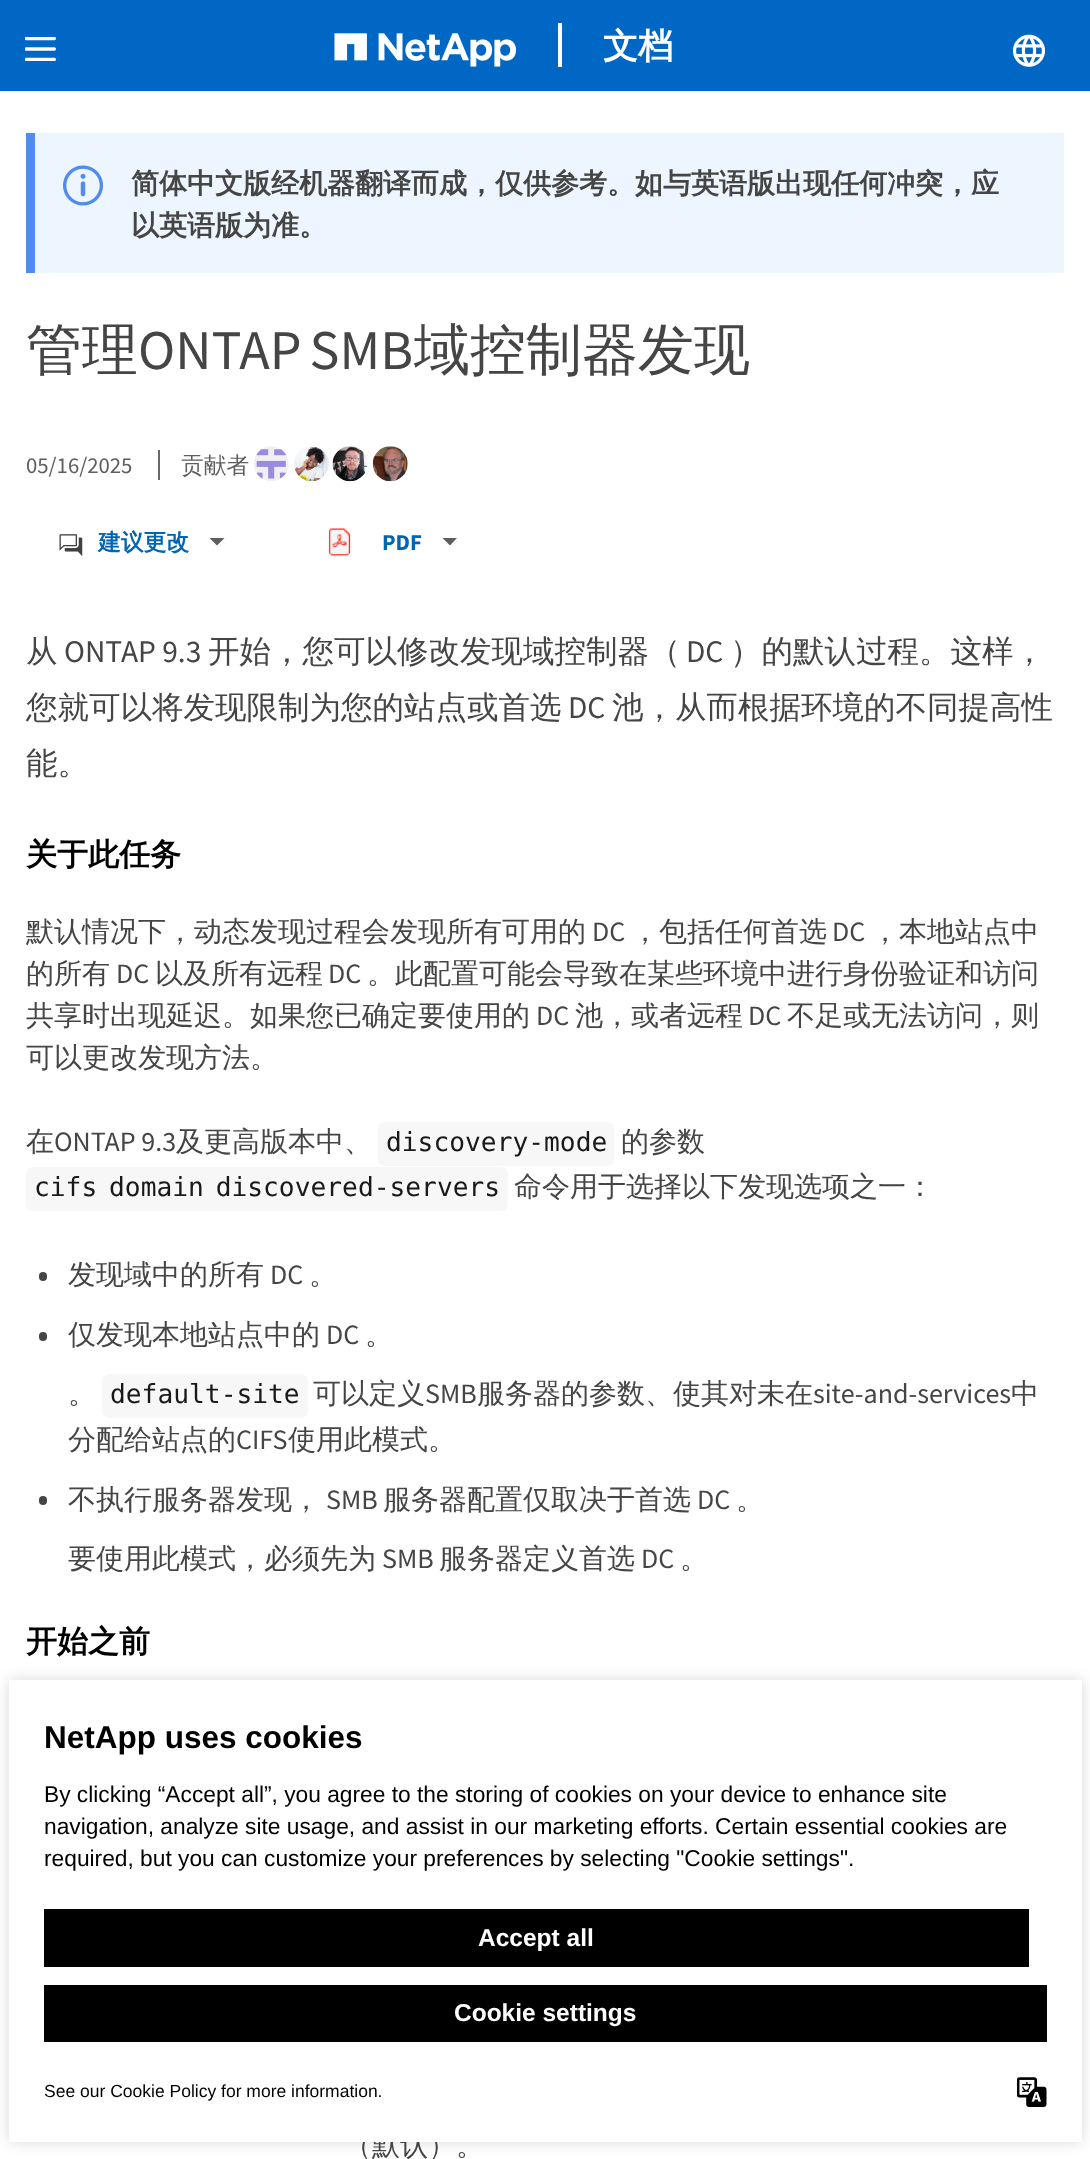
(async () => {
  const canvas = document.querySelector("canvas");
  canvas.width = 1090;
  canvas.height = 2159;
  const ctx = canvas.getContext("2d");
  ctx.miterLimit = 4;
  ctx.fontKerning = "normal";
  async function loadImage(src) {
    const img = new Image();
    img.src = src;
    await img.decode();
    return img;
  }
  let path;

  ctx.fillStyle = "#ffffff";
  ctx.fillRect(0, 0, 1090, 2159);
  ctx.fillStyle = "#0067c5";
  ctx.fillRect(0, 0, 1090, 91);
  ctx.drawImage(await loadImage("img/1.png"), 25, 37, 31, 24);
  ctx.drawImage(await loadImage("img/2.png"), 334, 33, 182, 34);
  ctx.fillStyle = "#ffffff";
  ctx.fillRect(558, 23, 4, 44);
  ctx.drawImage(await loadImage("img/3.png"), 1012, 34, 34, 33);
  ctx.fillStyle = "#edf6ff";
  ctx.fillRect(35, 133, 1029, 140);
  ctx.fillStyle = "#518bec";
  ctx.fillRect(26, 133, 9, 140);
  ctx.drawImage(await loadImage("img/4.png"), 63, 165, 40, 41);
  ctx.fillStyle = "#686868";
  ctx.fillRect(158, 450, 2, 30);
  ctx.drawImage(await loadImage("img/5.png"), 254, 446, 35, 35);
  ctx.drawImage(await loadImage("img/6.png"), 294, 446, 35, 36);
  ctx.drawImage(await loadImage("img/7.png"), 332, 446, 36, 36);
  ctx.drawImage(await loadImage("img/8.png"), 372, 446, 36, 36);
  ctx.drawImage(await loadImage("img/9.png"), 59, 534, 24, 22);
  ctx.fillStyle = "#5e5e5e";
  path = new Path2D("M217 545.5L209.5 538H224.5Z");
  ctx.fill(path);
  ctx.drawImage(await loadImage("img/10.png"), 328, 528, 23, 28);
  path = new Path2D("M450 545.5L442.5 538H457Z");
  ctx.fill(path);
  ctx.fillStyle = "#f7f7f8";
  ctx.beginPath();
  ctx.roundRect(378, 1122, 236, 44, 7);
  ctx.fill();
  ctx.beginPath();
  ctx.roundRect(26, 1167, 482, 44, 7);
  ctx.fill();
  ctx.fillStyle = "#454545";
  ctx.beginPath();
  ctx.roundRect(39, 1272, 8, 9, 4);
  ctx.fill();
  ctx.beginPath();
  ctx.roundRect(39, 1332, 8, 9, 4);
  ctx.fill();
  ctx.fillStyle = "#f7f7f8";
  ctx.beginPath();
  ctx.roundRect(102, 1374, 206, 44, 7);
  ctx.fill();
  ctx.fillStyle = "#454545";
  ctx.beginPath();
  ctx.roundRect(39, 1496, 8, 9, 4);
  ctx.fill();
  ctx.fillStyle = "rgba(0, 0, 0, 0.15)";
  ctx.filter = "blur(7px)";
  ctx.beginPath();
  ctx.rect(9, 1680, 1073, 462);
  ctx.fill();
  ctx.filter = "none";
  ctx.font = "bold 35px WenQuanYi Zen Hei";
  ctx.fillStyle = "#ffffff";
  ctx.fillText("文档", 603, 58);
  ctx.font = "bold 28px WenQuanYi Zen Hei";
  ctx.fillStyle = "#454545";
  ctx.fillText("简体中文版经机器翻译而成，仅供参考。如与英语版出现任何冲突，应", 131, 193);
  ctx.fillText("以英语版为准。", 131, 235);
  ctx.font = "500 56px WenQuanYi Zen Hei";
  ctx.fillText("管理", 26, 369);
  ctx.wordSpacing = "-3px";
  ctx.font = "56px Source Sans Pro";
  ctx.fillText("ONTAP SMB", 138, 369);
  ctx.wordSpacing = "0px";
  ctx.font = "500 56px WenQuanYi Zen Hei";
  ctx.fillText("域控制器发现", 414, 369);
  ctx.font = "22.75px Source Sans Pro";
  ctx.fillStyle = "#5e5e5e";
  ctx.fillText("05/16/2025", 26, 473);
  ctx.font = "500 22.75px WenQuanYi Zen Hei";
  ctx.fillText("贡献者", 181, 473);
  ctx.font = "bold 22.75px WenQuanYi Zen Hei";
  ctx.fillStyle = "#0065b3";
  ctx.fillText("建议更改", 98, 550);
  ctx.font = "bold 22.75px Source Sans Pro";
  ctx.fillText("PDF", 382, 550);
  ctx.font = "500 31.5px WenQuanYi Zen Hei";
  ctx.fillStyle = "#454545";
  ctx.fillText("从", 26, 662);
  ctx.font = "31.5px Source Sans Pro";
  ctx.fillText("ONTAP 9.3", 64, 662);
  ctx.font = "500 31.5px WenQuanYi Zen Hei";
  ctx.fillText("开始，您可以修改发现域控制器（", 208, 662);
  ctx.font = "31.5px Source Sans Pro";
  ctx.fillText("DC", 686, 662);
  ctx.font = "500 31.5px WenQuanYi Zen Hei";
  ctx.fillText("）的默认过程。这样，", 730, 662);
  ctx.fillText("您就可以将发现限制为您的站点或首选", 26, 718);
  ctx.font = "31.5px Source Sans Pro";
  ctx.fillText("DC", 568, 718);
  ctx.font = "500 31.5px WenQuanYi Zen Hei";
  ctx.fillText("池，从而根据环境的不同提高性", 612, 718);
  ctx.fillText("能。", 26, 774);
  ctx.font = "bold 31px WenQuanYi Zen Hei";
  ctx.fillStyle = "#000000";
  ctx.fillText("关于此任务", 26, 865);
  ctx.font = "500 28px WenQuanYi Zen Hei";
  ctx.fillStyle = "#454545";
  ctx.fillText("默认情况下，动态发现过程会发现所有可用的", 26, 941);
  ctx.font = "28px Source Sans Pro";
  ctx.fillText("DC", 592, 941);
  ctx.font = "500 28px WenQuanYi Zen Hei";
  ctx.fillText("，包括任何首选", 631, 941);
  ctx.font = "28px Source Sans Pro";
  ctx.fillText("DC", 832, 941);
  ctx.font = "500 28px WenQuanYi Zen Hei";
  ctx.fillText("，本地站点中", 871, 941);
  ctx.fillText("的所有", 26, 983);
  ctx.font = "28px Source Sans Pro";
  ctx.fillText("DC", 116, 983);
  ctx.font = "500 28px WenQuanYi Zen Hei";
  ctx.fillText("以及所有远程", 155, 983);
  ctx.font = "28px Source Sans Pro";
  ctx.fillText("DC", 328, 983);
  ctx.font = "500 28px WenQuanYi Zen Hei";
  ctx.fillText("。此配置可能会导致在某些环境中进行身份验证和访问", 367, 983);
  ctx.fillText("共享时出现延迟。如果您已确定要使用的", 26, 1025);
  ctx.font = "28px Source Sans Pro";
  ctx.fillText("DC", 536, 1025);
  ctx.font = "500 28px WenQuanYi Zen Hei";
  ctx.fillText("池，或者远程", 575, 1025);
  ctx.font = "28px Source Sans Pro";
  ctx.fillText("DC", 748, 1025);
  ctx.font = "500 28px WenQuanYi Zen Hei";
  for (const [text, x, y] of [
    ["不足或无法访问，则", 787, 1025],
    ["可以更改发现方法。", 26, 1067],
    ["在", 26, 1151],
  ]) {
    ctx.fillText(text, x, y);
  }
  ctx.font = "28px Source Sans Pro";
  ctx.fillText("ONTAP 9.3", 54, 1151);
  ctx.font = "500 28px WenQuanYi Zen Hei";
  ctx.fillText("及更高版本中、", 176, 1151);
  ctx.font = "26.25px DejaVu Sans Mono";
  ctx.fillStyle = "#191919";
  ctx.fillText("discovery-mode", 386, 1151);
  ctx.font = "500 28px WenQuanYi Zen Hei";
  ctx.fillStyle = "#454545";
  ctx.fillText("的参数", 621, 1151);
  ctx.wordSpacing = "-4px";
  ctx.font = "26.25px DejaVu Sans Mono";
  ctx.fillStyle = "#191919";
  ctx.fillText("cifs domain discovered-servers", 34, 1196);
  ctx.wordSpacing = "0px";
  ctx.font = "500 28px WenQuanYi Zen Hei";
  ctx.fillStyle = "#454545";
  ctx.fillText("命令用于选择以下发现选项之一：", 514, 1196);
  ctx.fillText("发现域中的所有", 68, 1284);
  ctx.font = "28px Source Sans Pro";
  ctx.fillText("DC", 270, 1284);
  ctx.font = "500 28px WenQuanYi Zen Hei";
  ctx.fillText("。", 309, 1284);
  ctx.fillText("仅发现本地站点中的", 68, 1344);
  ctx.font = "28px Source Sans Pro";
  ctx.fillText("DC", 326, 1344);
  ctx.font = "500 28px WenQuanYi Zen Hei";
  ctx.fillText("。", 365, 1344);
  ctx.fillText("。", 68, 1403);
  ctx.font = "26.25px DejaVu Sans Mono";
  ctx.fillStyle = "#191919";
  ctx.fillText("default-site", 110, 1403);
  ctx.font = "500 28px WenQuanYi Zen Hei";
  ctx.fillStyle = "#454545";
  ctx.fillText("可以定义", 313, 1403);
  ctx.font = "28px Source Sans Pro";
  ctx.fillText("SMB", 425, 1403);
  ctx.font = "500 28px WenQuanYi Zen Hei";
  ctx.fillText("服务器的参数、使其对未在", 477, 1403);
  ctx.font = "28px Source Sans Pro";
  ctx.fillText("site-and-services", 813, 1403);
  ctx.font = "500 28px WenQuanYi Zen Hei";
  ctx.fillText("中", 1011, 1403);
  ctx.fillText("分配给站点的", 68, 1449);
  ctx.font = "28px Source Sans Pro";
  ctx.fillText("CIFS", 236, 1449);
  ctx.font = "500 28px WenQuanYi Zen Hei";
  ctx.fillText("使用此模式。", 288, 1449);
  ctx.fillText("不执行服务器发现，", 68, 1509);
  ctx.font = "28px Source Sans Pro";
  ctx.fillText("SMB", 326, 1509);
  ctx.font = "500 28px WenQuanYi Zen Hei";
  ctx.fillText("服务器配置仅取决于首选", 383, 1509);
  ctx.font = "28px Source Sans Pro";
  ctx.fillText("DC", 697, 1509);
  ctx.font = "500 28px WenQuanYi Zen Hei";
  ctx.fillText("。", 736, 1509);
  ctx.fillText("要使用此模式，必须先为", 68, 1568);
  ctx.font = "28px Source Sans Pro";
  ctx.fillText("SMB", 382, 1568);
  ctx.font = "500 28px WenQuanYi Zen Hei";
  ctx.fillText("服务器定义首选", 439, 1568);
  ctx.font = "28px Source Sans Pro";
  ctx.fillText("DC", 641, 1568);
  ctx.font = "500 28px WenQuanYi Zen Hei";
  ctx.fillText("。", 680, 1568);
  ctx.font = "bold 31px WenQuanYi Zen Hei";
  ctx.fillStyle = "#000000";
  ctx.fillText("开始之前", 26, 1652);
  ctx.font = "500 28px WenQuanYi Zen Hei";
  ctx.fillStyle = "#454545";
  ctx.fillText("（默认）。", 344, 2155);
  ctx.fillStyle = "#ffffff";
  ctx.fillRect(9, 1680, 1073, 462);
  ctx.font = "bold 31.5px Liberation Sans";
  ctx.fillStyle = "#000000";
  ctx.fillText("NetApp uses cookies", 44, 1748);
  ctx.font = "22.75px Liberation Sans";
  for (const [text, x, y] of [
    ["By clicking “Accept all”, you agree to the storing of cookies on your device to enhance site", 44, 1802],
    ["navigation, analyze site usage, and assist in our marketing efforts. Certain essential cookies are", 44, 1834],
    ["required, but you can customize your preferences by selecting \"Cookie settings\".", 44, 1866],
  ]) {
    ctx.fillText(text, x, y);
  }
  ctx.fillRect(44, 1909, 985, 58);
  ctx.font = "bold 24.5px Liberation Sans";
  ctx.fillStyle = "#ffffff";
  ctx.fillText("Accept all", 478, 1946);
  ctx.fillStyle = "#000000";
  ctx.fillRect(44, 1985, 1003, 57);
  ctx.fillStyle = "#ffffff";
  ctx.fillText("Cookie settings", 454, 2021);
  ctx.font = "17.5px Liberation Sans";
  ctx.fillStyle = "#000000";
  ctx.fillText("See our Cookie Policy for more information.", 44, 2097);
  ctx.drawImage(await loadImage("img/11.png"), 1017, 2077, 30, 30);
})();
